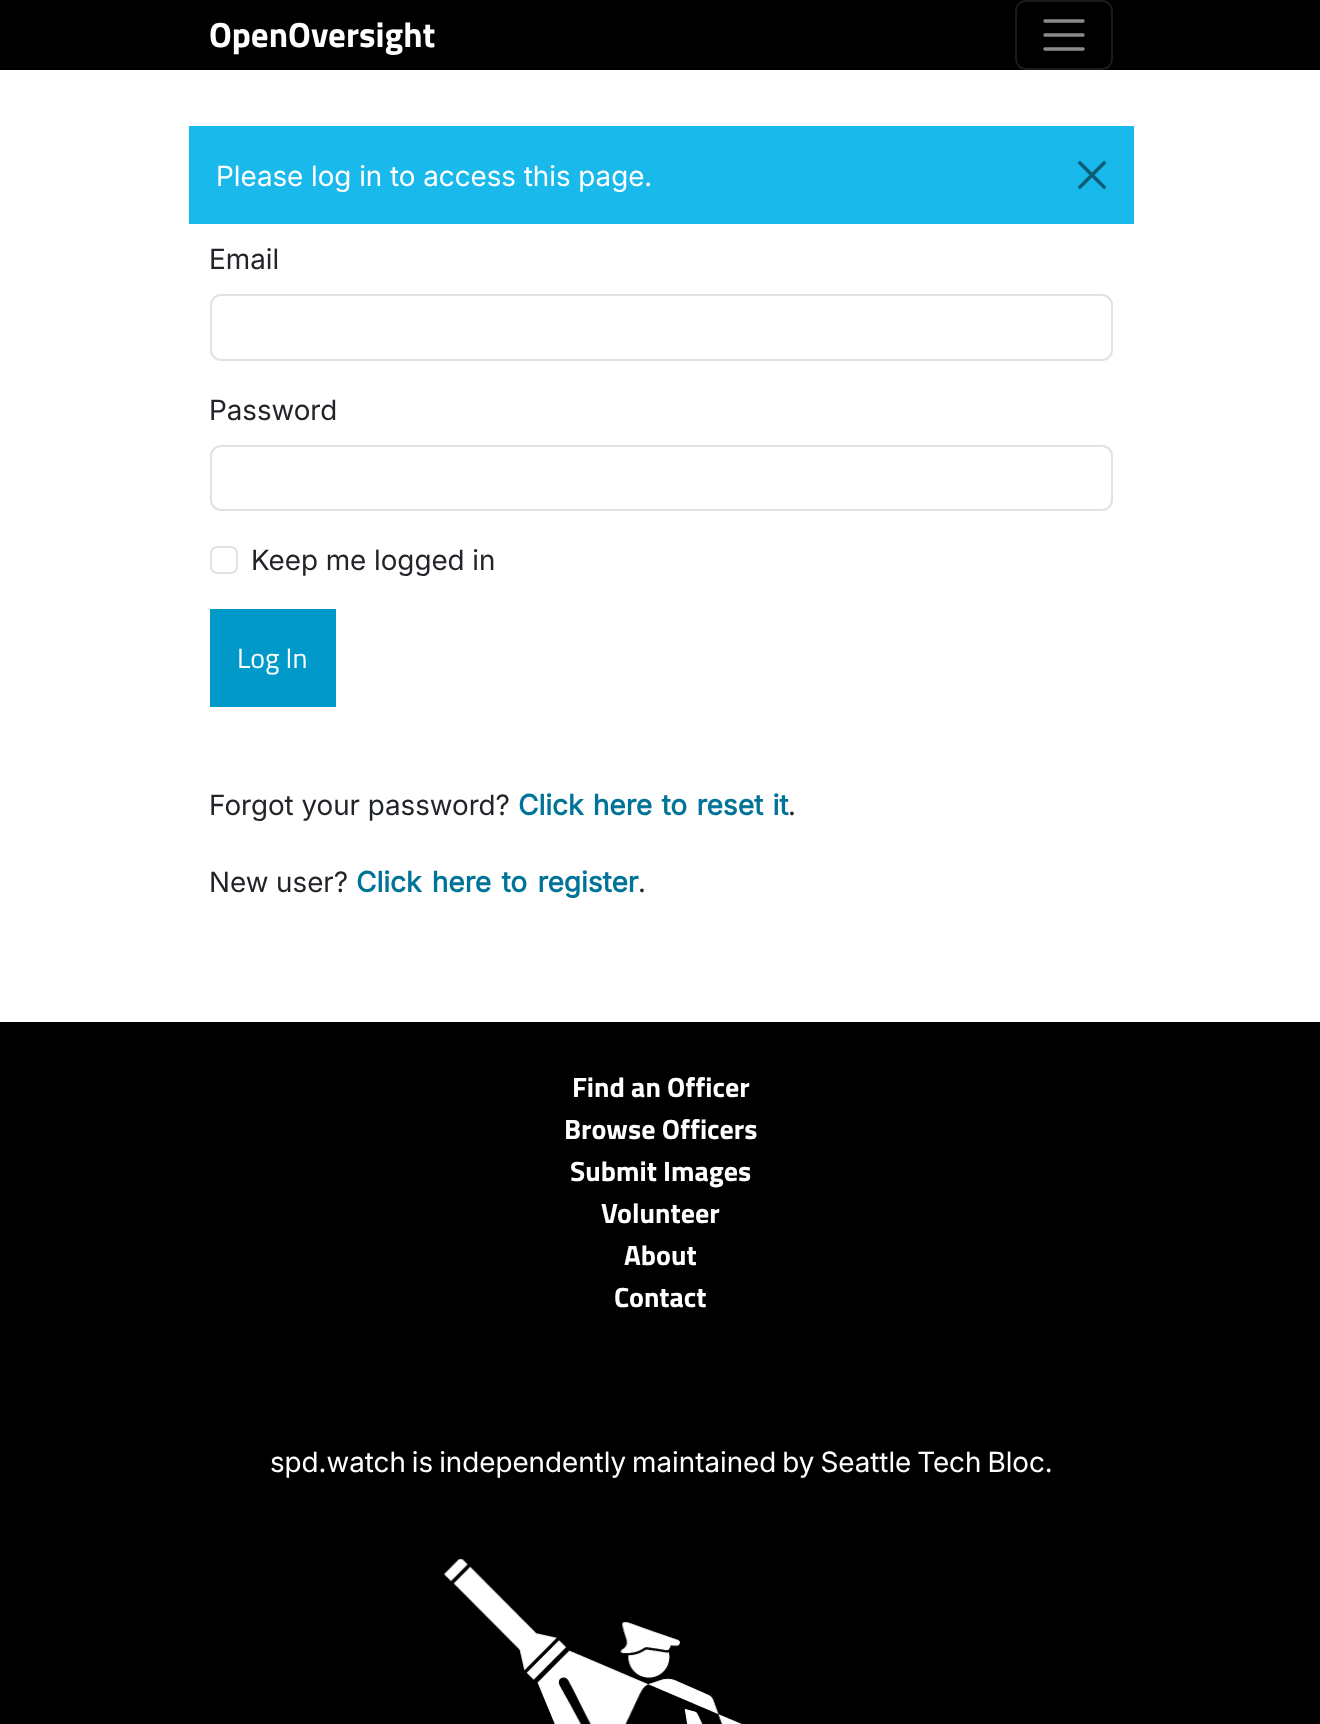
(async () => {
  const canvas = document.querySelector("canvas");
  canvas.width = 1320;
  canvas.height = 1724;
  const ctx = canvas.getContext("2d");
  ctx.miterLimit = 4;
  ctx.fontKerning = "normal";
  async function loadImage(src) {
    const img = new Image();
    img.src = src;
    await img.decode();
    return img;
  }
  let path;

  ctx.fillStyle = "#ffffff";
  ctx.fillRect(0, 0, 1320, 1724);
  ctx.fillStyle = "#000000";
  ctx.fillRect(0, 0, 1320, 70);
  ctx.beginPath();
  ctx.roundRect(1016, 1, 96, 68, 10);
  ctx.strokeStyle = "#1a1a1a";
  ctx.lineWidth = 2;
  ctx.stroke();
  path = new Path2D("M1045 21H1083M1045 35H1083M1045 49H1083");
  ctx.strokeStyle = "#8c8c8c";
  ctx.lineWidth = 3.5;
  ctx.lineCap = "round";
  ctx.stroke(path);
  ctx.fillStyle = "#1ab9eb";
  ctx.fillRect(189, 126, 945, 98);
  ctx.drawImage(await loadImage("img/1.png"), 1078, 161, 28, 28);
  ctx.beginPath();
  ctx.roundRect(211, 295, 901, 65, 10);
  ctx.strokeStyle = "#dee2e6";
  ctx.lineWidth = 2;
  ctx.stroke();
  ctx.beginPath();
  ctx.roundRect(211, 446, 901, 64, 10);
  ctx.stroke();
  ctx.beginPath();
  ctx.roundRect(211, 547, 26, 26, 6);
  ctx.stroke();
  ctx.fillStyle = "#0099c9";
  ctx.fillRect(210, 609, 126, 98);
  ctx.fillStyle = "#000000";
  ctx.fillRect(0, 1022, 1320, 702);
  ctx.drawImage(await loadImage("img/2.png"), 443, 1559, 300, 165);
  ctx.font = "bold 35px Titillium Web";
  ctx.fillStyle = "#ffffff";
  ctx.fillText("OpenOversight", 209, 47);
  ctx.font = "28px Inter";
  ctx.fillText("Please log in to access this page.", 216, 186);
  ctx.fillStyle = "#212529";
  for (const [text, x, y] of [
    ["Email", 209, 269],
    ["Password", 209, 420],
    ["Keep me logged in", 251, 570],
  ]) {
    ctx.fillText(text, x, y);
  }
  ctx.font = "28px Titillium Web";
  ctx.fillStyle = "#ffffff";
  ctx.fillText("Log In", 237, 668);
  ctx.font = "28px Inter";
  ctx.fillStyle = "#212529";
  ctx.fillText("Forgot your password?", 209, 815);
  ctx.wordSpacing = "1.5px";
  ctx.font = "bold 28px Inter";
  ctx.fillStyle = "#007498";
  ctx.fillText("Click here to reset it", 518, 815);
  ctx.wordSpacing = "0px";
  ctx.font = "28px Inter";
  ctx.fillStyle = "#212529";
  ctx.fillText(".", 788, 815);
  ctx.fillText("New user?", 209, 892);
  ctx.wordSpacing = "2.5px";
  ctx.font = "bold 28px Inter";
  ctx.fillStyle = "#007498";
  ctx.fillText("Click here to register", 356, 892);
  ctx.wordSpacing = "0px";
  ctx.font = "28px Inter";
  ctx.fillStyle = "#212529";
  ctx.fillText(".", 638, 892);
  ctx.font = "bold 28px Titillium Web";
  ctx.fillStyle = "#ffffff";
  for (const [text, x, y] of [
    ["Find an Officer", 572, 1097],
    ["Browse Officers", 564, 1139],
    ["Submit Images", 570, 1181],
    ["Volunteer", 601, 1223],
    ["About", 624, 1265],
    ["Contact", 614, 1307],
  ]) {
    ctx.fillText(text, x, y);
  }
  ctx.wordSpacing = "-1.75px";
  ctx.font = "28px Inter";
  ctx.fillText("spd.watch is independently maintained by Seattle Tech Bloc.", 270, 1472);
})();
